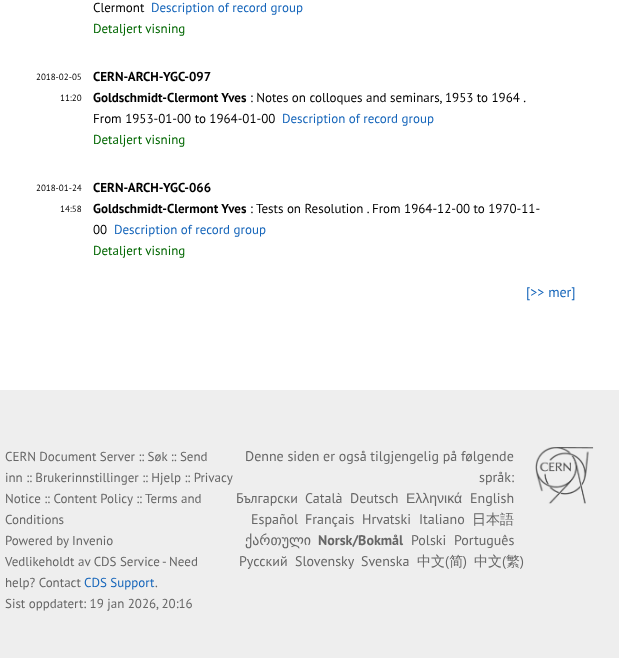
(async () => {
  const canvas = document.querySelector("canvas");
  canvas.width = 619;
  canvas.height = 658;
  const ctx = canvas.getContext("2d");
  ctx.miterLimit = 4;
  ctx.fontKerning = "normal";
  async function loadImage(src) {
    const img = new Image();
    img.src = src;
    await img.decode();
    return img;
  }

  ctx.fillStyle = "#ffffff";
  ctx.fillRect(0, 0, 619, 658);
  ctx.fillStyle = "#eeeeee";
  ctx.fillRect(0, 390, 619, 268);
  ctx.drawImage(await loadImage("img/1.png"), 535, 447, 59, 57);
  ctx.font = "13px PT Sans";
  ctx.fillStyle = "#000000";
  ctx.fillText("Clermont", 93, 12);
  ctx.fillStyle = "#1565ba";
  ctx.fillText("Description of record group", 151, 12);
  ctx.fillStyle = "#006600";
  ctx.fillText("Detaljert visning", 93, 33);
  ctx.font = "9px PT Sans";
  ctx.fillStyle = "#000000";
  ctx.fillText("2018-02-05", 36, 80);
  ctx.fillText("11:20", 60, 101);
  ctx.font = "bold 13px PT Sans";
  ctx.fillText("CERN-ARCH-YGC-097", 93, 81);
  ctx.fillText("Goldschmidt-Clermont Yves", 93, 102);
  ctx.font = "13px PT Sans";
  ctx.fillText(": Notes on colloques and seminars, 1953 to 1964 .", 250, 102);
  ctx.fillText("From 1953-01-00 to 1964-01-00", 93, 123);
  ctx.fillStyle = "#1565ba";
  ctx.fillText("Description of record group", 282, 123);
  ctx.fillStyle = "#006600";
  ctx.fillText("Detaljert visning", 93, 144);
  ctx.font = "9px PT Sans";
  ctx.fillStyle = "#000000";
  ctx.fillText("2018-01-24", 36, 191);
  ctx.fillText("14:58", 60, 212);
  ctx.font = "bold 13px PT Sans";
  ctx.fillText("CERN-ARCH-YGC-066", 93, 192);
  ctx.fillText("Goldschmidt-Clermont Yves", 93, 213);
  ctx.font = "13px PT Sans";
  ctx.fillText(": Tests on Resolution . From 1964-12-00 to 1970-11-", 250, 213);
  ctx.fillText("00", 93, 234);
  ctx.fillStyle = "#1565ba";
  ctx.fillText("Description of record group", 114, 234);
  ctx.fillStyle = "#006600";
  ctx.fillText("Detaljert visning", 93, 255);
  ctx.font = "14px PT Sans";
  ctx.fillStyle = "#1565ba";
  ctx.fillText("[>> mer]", 526, 297);
  ctx.font = "13px PT Sans";
  ctx.fillStyle = "#666666";
  for (const [text, x, y] of [
    ["CERN Document Server :: Søk :: Send", 5, 461],
    ["inn :: Brukerinnstillinger :: Hjelp :: Privacy", 5, 482],
    ["Notice :: Content Policy :: Terms and", 5, 503],
    ["Conditions", 5, 524],
    ["Powered by Invenio", 5, 545],
    ["Vedlikeholdt av CDS Service", 5, 566],
    ["- Need", 162, 566],
    ["help? Contact", 5, 587],
  ]) {
    ctx.fillText(text, x, y);
  }
  ctx.fillStyle = "#1565ba";
  ctx.fillText("CDS Support", 84, 587);
  ctx.fillStyle = "#666666";
  ctx.fillText(".", 155, 587);
  ctx.fillText("Sist oppdatert: 19 jan 2026, 20:16", 5, 608);
  ctx.font = "14px PT Sans";
  for (const [text, x, y] of [
    ["Denne siden er også tilgjengelig på følgende", 245, 461],
    ["språk:", 479, 482],
    ["Български", 236, 503],
    ["Català", 305, 503],
    ["Deutsch", 350, 503],
  ]) {
    ctx.fillText(text, x, y);
  }
  ctx.font = "14px Liberation Sans";
  ctx.fillText("Ελληνικά", 406, 503);
  ctx.font = "14px PT Sans";
  for (const [text, x, y] of [
    ["English", 470, 503],
    ["Español", 251, 524],
    ["Français", 305, 524],
    ["Hrvatski", 362, 524],
    ["Italiano", 419, 524],
  ]) {
    ctx.fillText(text, x, y);
  }
  ctx.font = "500 14px WenQuanYi Zen Hei";
  ctx.fillText("日本語", 472, 524);
  ctx.font = "14px DejaVu Sans";
  ctx.fillText("ქართული", 245, 545);
  ctx.font = "bold 14px PT Sans";
  ctx.fillText("Norsk/Bokmål", 318, 545);
  ctx.font = "14px PT Sans";
  for (const [text, x, y] of [
    ["Polski", 411, 545],
    ["Português", 454, 545],
    ["Русский", 239, 566],
    ["Slovensky", 295, 566],
    ["Svenska", 361, 566],
  ]) {
    ctx.fillText(text, x, y);
  }
  ctx.font = "500 14px WenQuanYi Zen Hei";
  ctx.fillText("中文 简", 417, 566);
  ctx.fillText("中文", 474, 566);
  ctx.font = "14px PT Sans";
  for (const [text, x, y] of [
    ["(", 445, 566],
    [")", 463, 566],
    ["(", 502, 566],
  ]) {
    ctx.fillText(text, x, y);
  }
  ctx.font = "500 14px WenQuanYi Zen Hei";
  ctx.fillText("繁", 506, 566);
  ctx.font = "14px PT Sans";
  ctx.fillText(")", 520, 566);
})();
